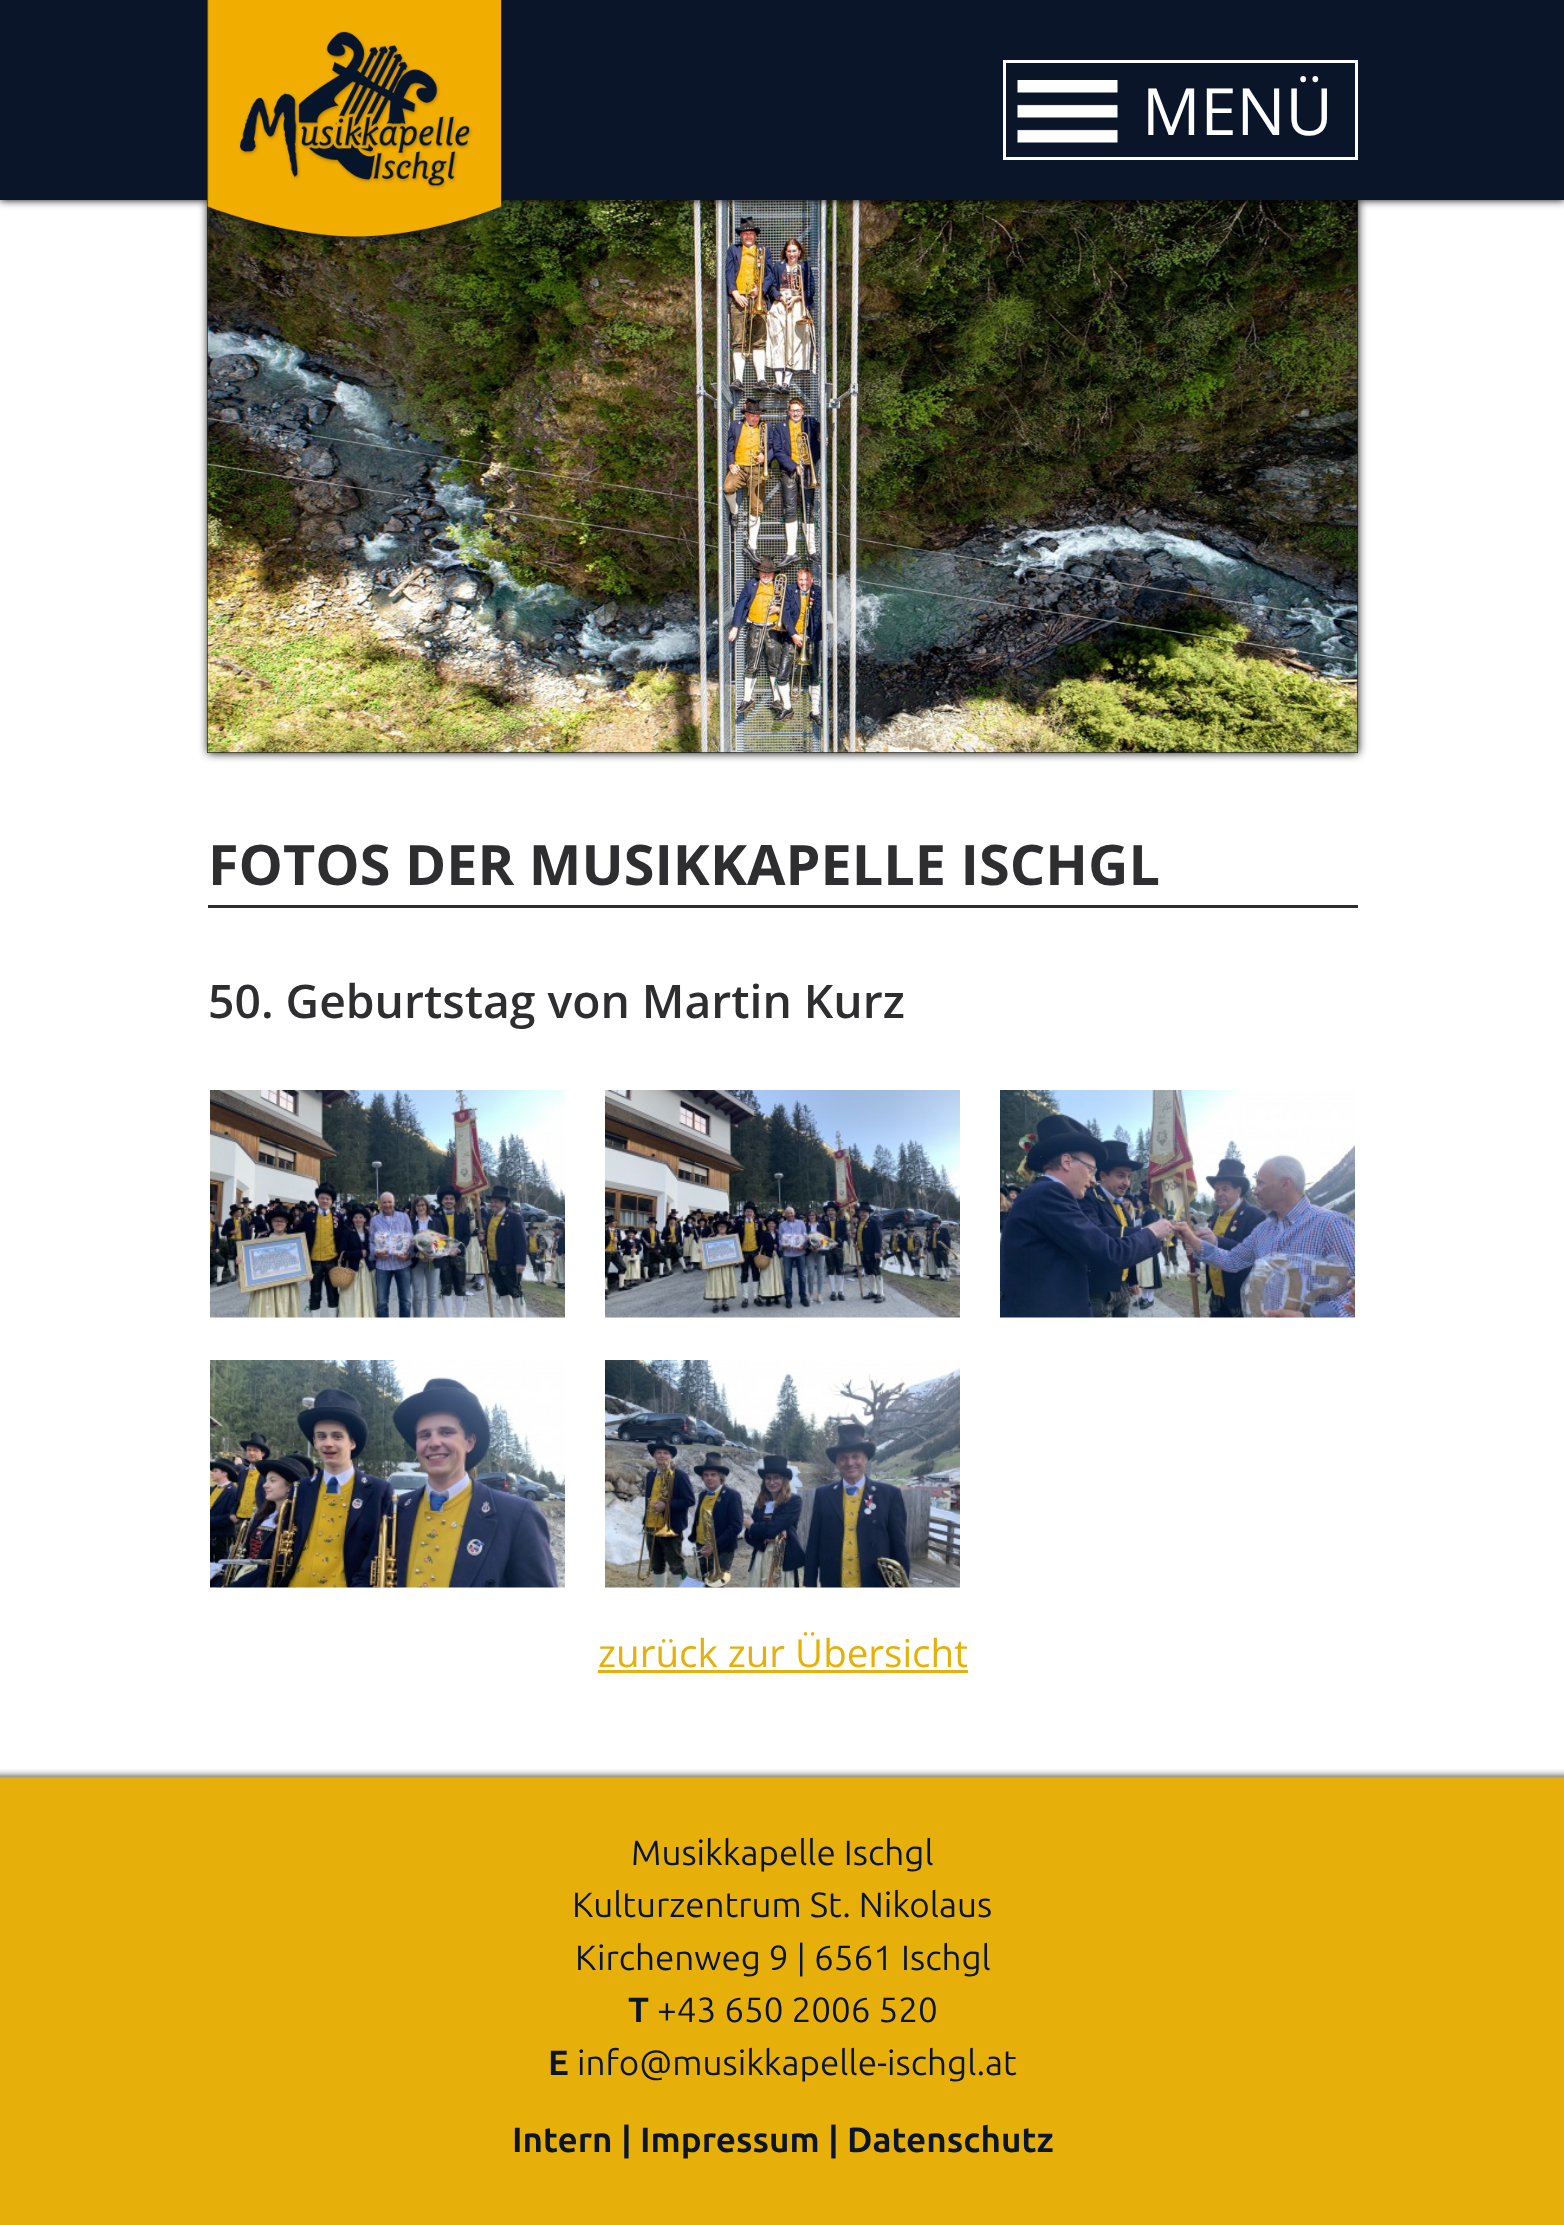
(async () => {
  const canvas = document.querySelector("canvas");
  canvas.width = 1564;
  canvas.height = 2225;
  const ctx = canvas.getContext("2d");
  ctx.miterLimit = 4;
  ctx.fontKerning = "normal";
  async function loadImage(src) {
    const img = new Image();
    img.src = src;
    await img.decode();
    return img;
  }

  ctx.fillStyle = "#ffffff";
  ctx.fillRect(0, 0, 1564, 2225);
  ctx.fillStyle = "#000000";
  ctx.filter = "blur(5px)";
  ctx.beginPath();
  ctx.rect(208, 198, 1150, 555);
  ctx.fill();
  ctx.filter = "none";
  ctx.fillStyle = "rgba(0, 0, 0, 0.75)";
  ctx.fillRect(207, 200, 1151, 553);
  ctx.drawImage(await loadImage("img/3.png"), 207, 200, 1151, 553);
  ctx.fillStyle = "#000000";
  ctx.filter = "blur(4px)";
  ctx.beginPath();
  ctx.rect(0, 0, 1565, 200);
  ctx.fill();
  ctx.filter = "none";
  ctx.fillStyle = "#0a1529";
  ctx.fillRect(0, 0, 1564, 200);
  ctx.drawImage(await loadImage("img/1.png"), 207, 0, 300, 244);
  ctx.drawImage(await loadImage("img/2.png"), 1017, 80, 101, 63);
  ctx.strokeStyle = "#ffffff";
  ctx.lineWidth = 3;
  ctx.strokeRect(1004.5, 61.5, 352, 97);
  ctx.drawImage(await loadImage("img/4.png"), 0, 1769, 1564, 456);
  ctx.fillStyle = "#2e2d30";
  ctx.fillRect(208, 905, 1150, 3);
  ctx.drawImage(await loadImage("img/5.png"), 210, 1090, 355, 228);
  ctx.drawImage(await loadImage("img/6.png"), 605, 1090, 355, 228);
  ctx.drawImage(await loadImage("img/7.png"), 1000, 1090, 355, 228);
  ctx.drawImage(await loadImage("img/8.png"), 210, 1360, 355, 228);
  ctx.drawImage(await loadImage("img/9.png"), 605, 1360, 355, 228);
  ctx.fillStyle = "#e7af09";
  ctx.fillRect(598, 1670, 370, 3);
  ctx.fillRect(208, 1778, 1150, 1);
  ctx.font = "65px Open Sans";
  ctx.fillStyle = "#ffffff";
  ctx.fillText("MENÜ", 1142, 135);
  ctx.font = "bold 55.8px Open Sans";
  ctx.fillStyle = "#2e2d30";
  ctx.fillText("FOTOS DER MUSIKKAPELLE ISCHGL", 208, 885);
  ctx.font = "600 46.25px Open Sans";
  ctx.fillText("50. Geburtstag von Martin Kurz", 208, 1018);
  ctx.font = "38.5px Open Sans";
  ctx.fillStyle = "#e7af09";
  ctx.fillText("zurück zur Übersicht", 598, 1667);
  ctx.font = "35px Ubuntu";
  ctx.fillStyle = "#0a1529";
  for (const [text, x, y] of [
    ["Musikkapelle Ischgl", 631, 1865],
    ["Kulturzentrum St. Nikolaus", 572, 1917],
    ["Kirchenweg 9 | 6561 Ischgl", 575, 1970],
  ]) {
    ctx.fillText(text, x, y);
  }
  ctx.font = "bold 35px Ubuntu";
  ctx.fillText("T", 628, 2022);
  ctx.font = "35px Ubuntu";
  ctx.fillText("+43 650 2006 520", 657, 2022);
  ctx.font = "bold 35px Ubuntu";
  ctx.fillText("E", 548, 2075);
  ctx.font = "35px Ubuntu";
  ctx.fillText("info@musikkapelle-ischgl.at", 577, 2075);
  ctx.font = "bold 35px Ubuntu";
  ctx.fillText("Intern | Impressum | Datenschutz", 512, 2152);
})();
